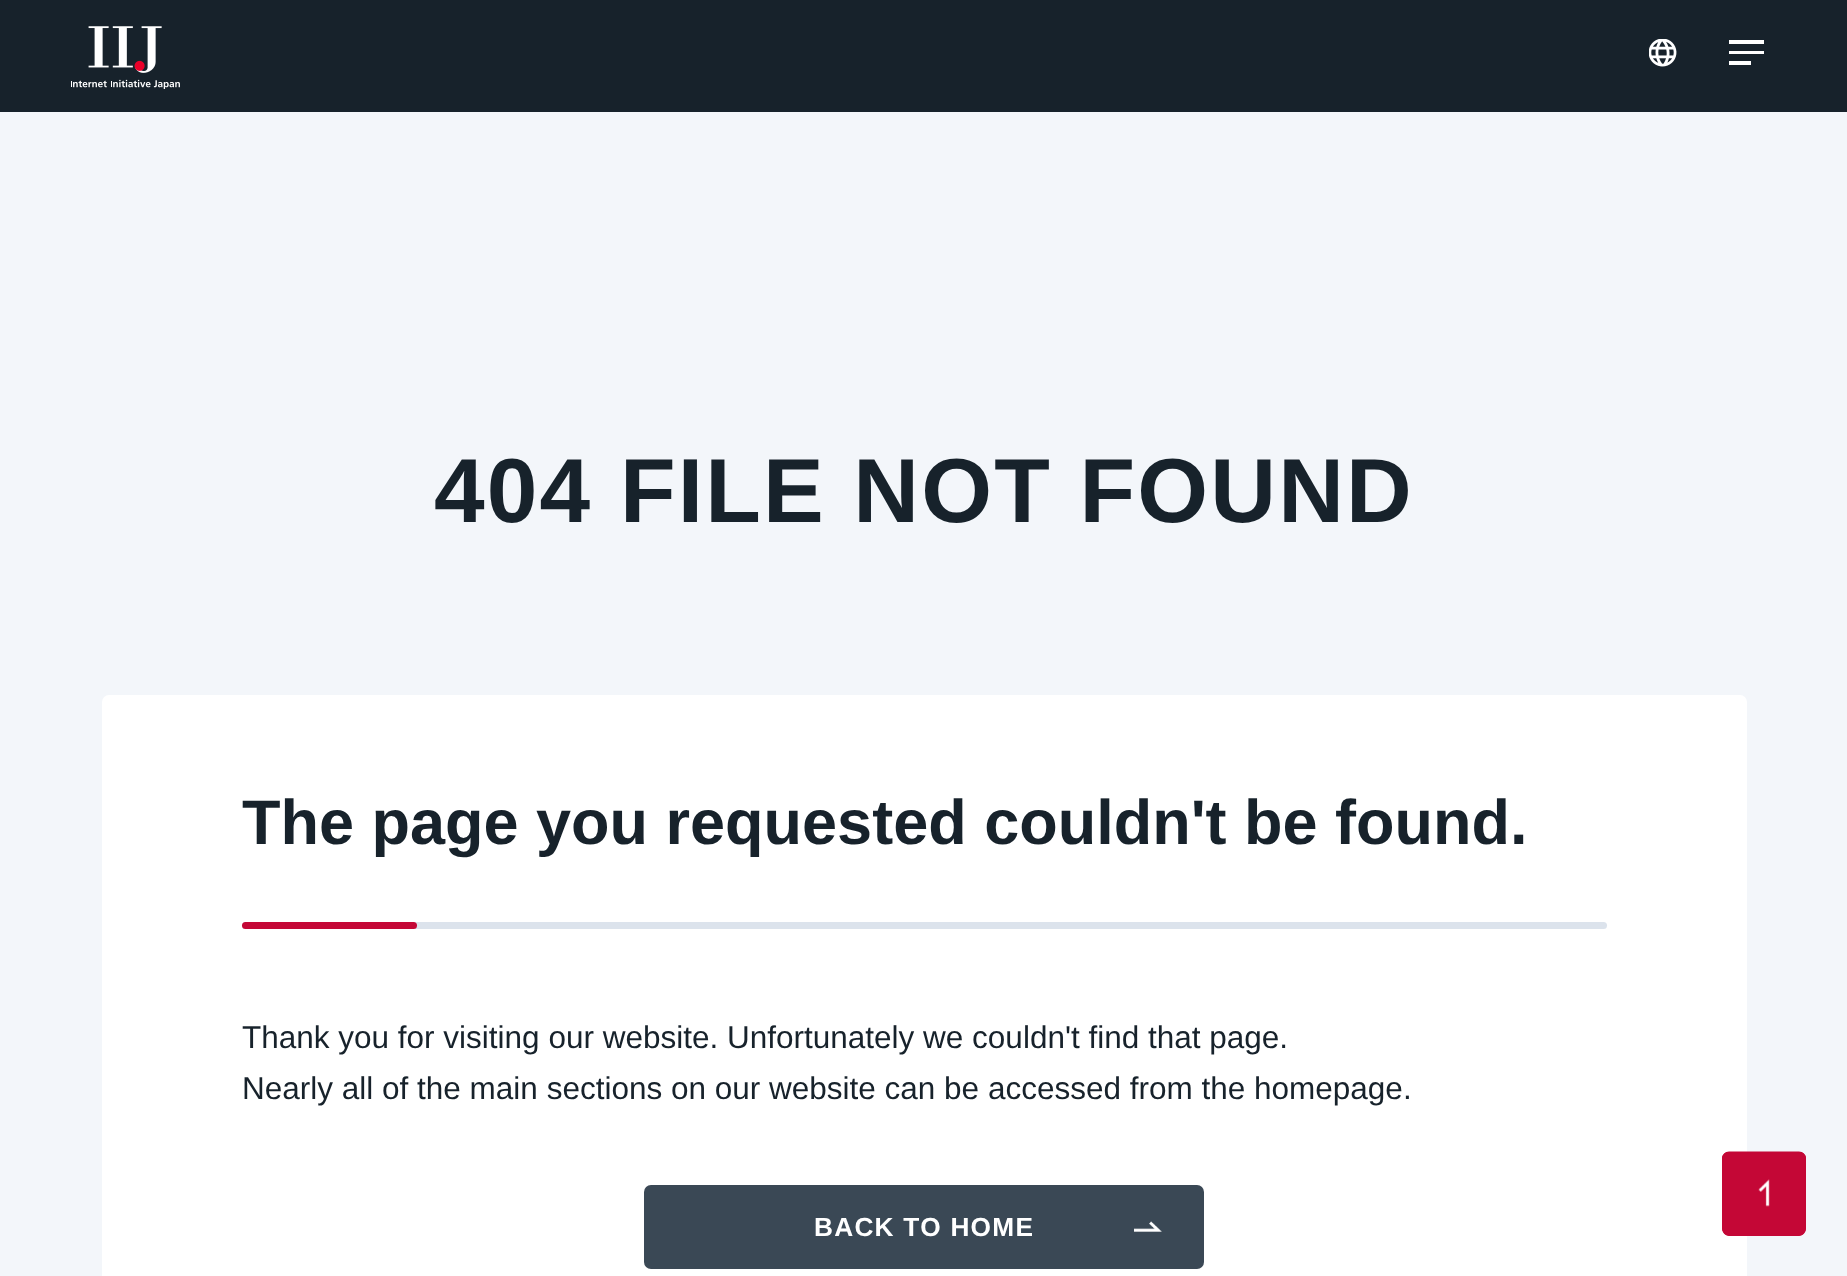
(async () => {
  const canvas = document.querySelector("canvas");
  canvas.width = 1847;
  canvas.height = 1276;
  const ctx = canvas.getContext("2d");
  ctx.miterLimit = 4;
  ctx.fontKerning = "normal";
  async function loadImage(src) {
    const img = new Image();
    img.src = src;
    await img.decode();
    return img;
  }
  let path;

  ctx.fillStyle = "#f3f6fa";
  ctx.fillRect(0, 0, 1847, 1276);
  ctx.fillStyle = "#17222b";
  ctx.fillRect(0, 0, 1847, 112);
  ctx.drawImage(await loadImage("img/1.png"), 71, 26, 109, 63);
  ctx.drawImage(await loadImage("img/2.png"), 1649, 39, 28, 28);
  ctx.fillStyle = "#ffffff";
  path = new Path2D("M1729 65V61H1751V65ZM1729 54V51H1764V54ZM1729 44V40H1764V44Z");
  ctx.fill(path);
  ctx.beginPath();
  ctx.roundRect(102, 695, 1645, 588, 7);
  ctx.fill();
  ctx.fillStyle = "#dce3ec";
  ctx.beginPath();
  ctx.roundRect(242, 922, 1365, 7, 3.5);
  ctx.fill();
  ctx.fillStyle = "#c40736";
  ctx.beginPath();
  ctx.roundRect(242, 922, 175, 7, 3.5);
  ctx.fill();
  ctx.fillStyle = "#3a4855";
  ctx.beginPath();
  ctx.roundRect(644, 1185, 560, 84, 7);
  ctx.fill();
  ctx.drawImage(await loadImage("img/3.png"), 1134, 1221, 28, 11);
  ctx.fillStyle = "#c40736";
  path = new Path2D("M1722 1228V1158C1722 1155 1725 1152 1729 1152H1799C1803 1152 1806 1155 1806 1158V1228C1806 1232 1803 1236 1799 1236H1729C1725 1236 1722 1232 1722 1228Z");
  ctx.fill(path);
  ctx.drawImage(await loadImage("img/4.png"), 1758, 1179, 12, 28);
  path = new Path2D("M1723 1228.5V1158.5C1723 1155 1725.5 1152.5 1729 1152.5H1799C1802.5 1152.5 1805 1155 1805 1158.5V1228.5C1805 1232 1802.5 1234.5 1799 1234.5H1729C1725.5 1234.5 1723 1232 1723 1228.5Z");
  ctx.strokeStyle = "#c40736";
  ctx.lineWidth = 1.8;
  ctx.stroke(path);
  ctx.letterSpacing = "2.2px";
  ctx.font = "bold 91px Liberation Sans";
  ctx.fillStyle = "#17222b";
  ctx.fillText("404 FILE NOT FOUND", 434, 522);
  ctx.letterSpacing = "0px";
  ctx.font = "bold 63px Liberation Sans";
  ctx.fillText("The page you requested couldn't be found.", 242, 844);
  ctx.font = "31.5px Liberation Sans";
  ctx.fillText("Thank you for visiting our website. Unfortunately we couldn't find that page.", 242, 1048);
  ctx.fillText("Nearly all of the main sections on our website can be accessed from the homepage.", 242, 1099);
  ctx.letterSpacing = "1.25px";
  ctx.font = "bold 26.25px Liberation Sans";
  ctx.fillStyle = "#ffffff";
  ctx.fillText("BACK TO HOME", 814, 1236);
})();
